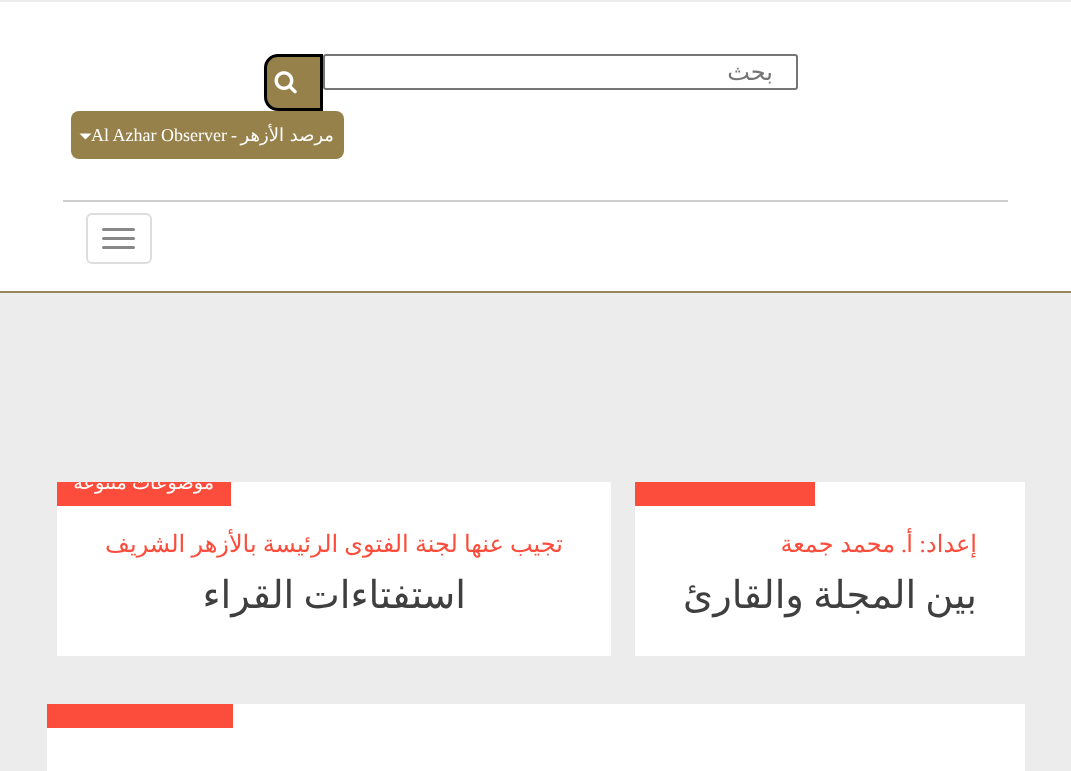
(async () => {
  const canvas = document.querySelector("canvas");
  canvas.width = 1071;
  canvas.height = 771;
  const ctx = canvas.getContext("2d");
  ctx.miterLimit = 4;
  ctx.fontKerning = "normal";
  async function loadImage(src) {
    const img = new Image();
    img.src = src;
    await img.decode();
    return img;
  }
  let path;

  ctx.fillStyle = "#ececec";
  ctx.fillRect(0, 0, 1071, 771);
  for (const [x, y, w, h, color] of [
    [0, 2, 1071, 289, "#ffffff"],
    [0, 291, 1071, 2, "#97865c"],
    [63, 200, 945, 2, "#cececf"],
  ]) {
    ctx.fillStyle = color;
    ctx.fillRect(x, y, w, h);
  }
  ctx.beginPath();
  ctx.roundRect(324, 55, 473, 34, 2);
  ctx.strokeStyle = "#767676";
  ctx.lineWidth = 2;
  ctx.stroke();
  ctx.fillStyle = "#97814a";
  ctx.beginPath();
  ctx.roundRect(265.5, 55.5, 56, 54, [12.5, 0, 0, 12.5]);
  ctx.fill();
  ctx.strokeStyle = "#000000";
  ctx.lineWidth = 3;
  ctx.stroke();
  ctx.drawImage(await loadImage("img/1.png"), 274, 71, 23, 23);
  ctx.beginPath();
  ctx.roundRect(71, 111, 273, 48, 8);
  ctx.fill();
  ctx.fillStyle = "#ffffff";
  path = new Path2D("M79.5 133.5H91.5L85.5 139.5Z");
  ctx.fill(path);
  ctx.beginPath();
  ctx.roundRect(87, 214, 64, 49, 5);
  ctx.strokeStyle = "#dddddd";
  ctx.lineWidth = 2;
  ctx.stroke();
  ctx.fillStyle = "#888888";
  ctx.beginPath();
  ctx.roundRect(102, 228, 33, 3, 1.5);
  ctx.fill();
  ctx.beginPath();
  ctx.roundRect(102, 237, 33, 3, 1.5);
  ctx.fill();
  ctx.beginPath();
  ctx.roundRect(102, 246, 33, 3, 1.5);
  ctx.fill();
  for (const [x, y, w, h, color] of [
    [635, 482, 390, 174, "#ffffff"],
    [635, 482, 180, 24, "#fc4c3b"],
    [57, 482, 554, 174, "#ffffff"],
    [57, 482, 174, 24, "#fc4c3b"],
    [47, 704, 978, 67, "#ffffff"],
    [47, 704, 186, 24, "#fc4c3b"],
  ]) {
    ctx.fillStyle = color;
    ctx.fillRect(x, y, w, h);
  }
  ctx.direction = "rtl";
  ctx.font = "24px DejaVu Sans";
  ctx.fillStyle = "#757575";
  ctx.fillText("بحث", 773, 80);
  ctx.font = "18px DejaVu Sans";
  ctx.fillStyle = "#ffffff";
  ctx.fillText("مرصد الأزهر", 334, 141);
  ctx.font = "18px Liberation Serif";
  ctx.fillText("-", 237, 141);
  ctx.direction = "ltr";
  ctx.fillText("Al Azhar Observer", 91, 141);
  ctx.direction = "rtl";
  ctx.font = "24px DejaVu Sans";
  ctx.fillStyle = "#fc4c3b";
  ctx.fillText("إعداد", 977, 552);
  ctx.font = "24px Liberation Serif";
  ctx.fillText(":", 926, 552);
  ctx.font = "24px DejaVu Sans";
  ctx.fillText("أ", 913, 552);
  ctx.font = "24px Liberation Serif";
  ctx.fillText(".", 907, 552);
  ctx.wordSpacing = "-1px";
  ctx.font = "24px DejaVu Sans";
  ctx.fillText("محمد جمعة", 895, 552);
  ctx.wordSpacing = "-3px";
  ctx.font = "38.5px DejaVu Sans";
  ctx.fillStyle = "#3f3f3f";
  ctx.fillText("بين المجلة والقارئ", 977, 608);
  ctx.save();
  ctx.beginPath();
  ctx.rect(57, 482, 554, 24);
  ctx.clip();
  ctx.wordSpacing = "-1px";
  ctx.font = "19.25px DejaVu Sans";
  ctx.fillStyle = "#ffffff";
  ctx.fillText("موضوعات متنوعة", 214, 489);
  ctx.restore();
  ctx.wordSpacing = "-1.5px";
  ctx.font = "24px DejaVu Sans";
  ctx.fillStyle = "#fc4c3b";
  ctx.fillText("تجيب عنها لجنة الفتوى الرئيسة بالأزهر الشريف", 563, 552);
  ctx.wordSpacing = "-3px";
  ctx.font = "38.5px DejaVu Sans";
  ctx.fillStyle = "#3f3f3f";
  ctx.fillText("استفتاءات القراء", 466, 608);
})();
